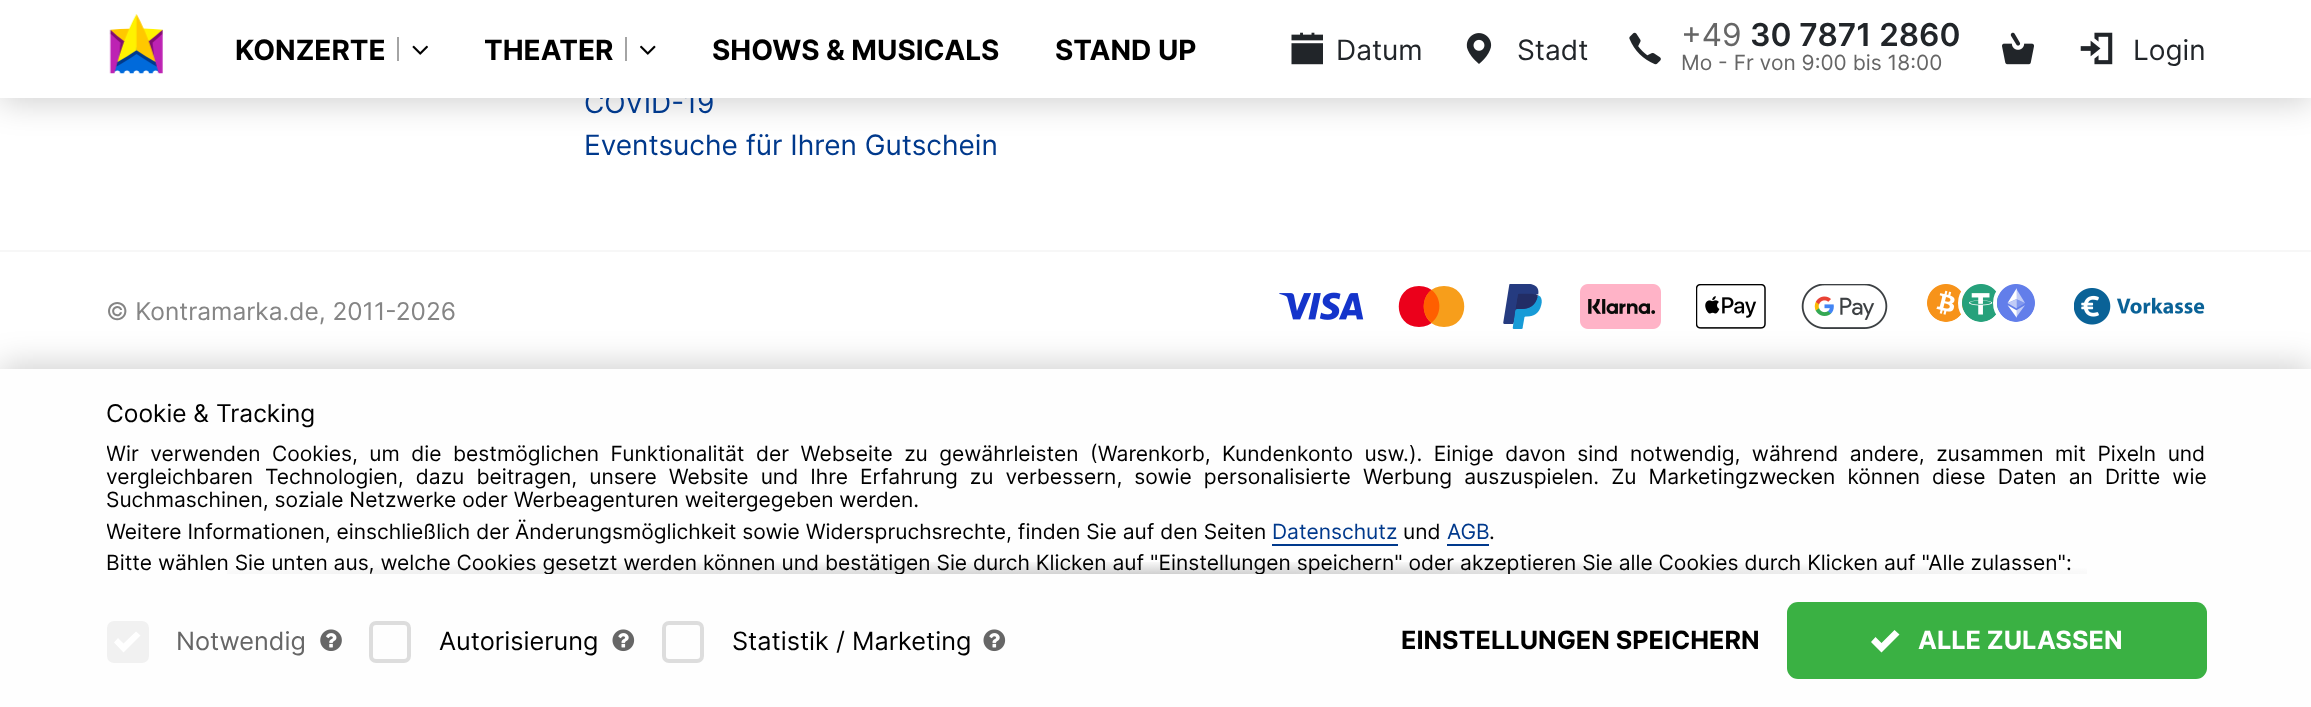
(async () => {
  const canvas = document.querySelector("canvas");
  canvas.width = 2311;
  canvas.height = 707;
  const ctx = canvas.getContext("2d");
  ctx.miterLimit = 4;
  ctx.fontKerning = "normal";
  async function loadImage(src) {
    const img = new Image();
    img.src = src;
    await img.decode();
    return img;
  }
  let gradient, path;

  ctx.fillStyle = "#f7f7f7";
  ctx.fillRect(0, 0, 2311, 707);
  ctx.fillStyle = "#ffffff";
  ctx.fillRect(0, 98, 2311, 152);
  ctx.fillStyle = "rgba(0, 0, 0, 0.18)";
  ctx.filter = "blur(16px)";
  ctx.beginPath();
  ctx.rect(0, 5, 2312, 98);
  ctx.fill();
  ctx.filter = "none";
  ctx.fillStyle = "#ffffff";
  ctx.fillRect(0, 252, 2311, 117);
  ctx.drawImage(await loadImage("img/9.png"), 1279, 292, 85, 28);
  ctx.fillStyle = "#eb001b";
  path = new Path2D("M1419 286C1392 286 1392 327 1419 327C1446 327 1446 286 1419 286Z");
  ctx.fill(path);
  ctx.fillStyle = "#f79e1b";
  path = new Path2D("M1444 286C1417 286 1417 327 1444 327C1471 327 1471 286 1444 286Z");
  ctx.fill(path);
  ctx.fillStyle = "#ff5f00";
  path = new Path2D("M1431.5 290C1421 298 1421 314.5 1431.5 322.5C1442 314.5 1442 298 1431.5 290");
  ctx.fill(path);
  ctx.drawImage(await loadImage("img/10.png"), 1503, 284, 39, 45);
  ctx.drawImage(await loadImage("img/11.png"), 1580, 284, 81, 45);
  ctx.drawImage(await loadImage("img/12.png"), 1696, 284, 70, 45);
  ctx.drawImage(await loadImage("img/13.png"), 1801, 284, 87, 45);
  ctx.drawImage(await loadImage("img/14.png"), 1927, 284, 37, 38);
  ctx.beginPath();
  ctx.arc(1981, 303, 21, 0, Math.PI * 2);
  ctx.strokeStyle = "#ffffff";
  ctx.lineWidth = 4;
  ctx.stroke();
  ctx.drawImage(await loadImage("img/15.png"), 1962, 284, 37, 38);
  ctx.beginPath();
  ctx.arc(2016, 303, 21, 0, Math.PI * 2);
  ctx.stroke();
  ctx.drawImage(await loadImage("img/16.png"), 1997, 284, 38, 38);
  ctx.drawImage(await loadImage("img/17.png"), 2074, 288, 131, 37);
  ctx.save();
  path = new Path2D("M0 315H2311V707H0ZM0 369H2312V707H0Z");
  ctx.clip(path, "evenodd");
  ctx.fillStyle = "rgba(0, 0, 0, 0.18)";
  ctx.filter = "blur(16px)";
  ctx.beginPath();
  ctx.rect(0, 364, 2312, 338);
  ctx.fill();
  ctx.filter = "none";
  ctx.restore();
  for (const [x, y, w, h, color] of [
    [0, 369, 2311, 338, "rgba(255, 255, 255, 0.84)"],
    [1272, 544, 126, 2, "#00398c"],
    [1447, 544, 42, 2, "#00398c"],
  ]) {
    ctx.fillStyle = color;
    ctx.fillRect(x, y, w, h);
  }
  gradient = ctx.createRadialGradient(1157, 43050, 0, 1157, 43050, 1050);
  gradient.addColorStop(0, "rgba(0, 0, 0, 0.18)");
  gradient.addColorStop(1, "rgba(0, 0, 0, 0)");
  ctx.fillStyle = gradient;
  ctx.beginPath();
  ctx.rect(227, 562, 1860, 12);
  ctx.save();
  ctx.clip();
  ctx.scale(1, 14 / 1050);
  ctx.fillRect(0, 0, 2311, 53025);
  ctx.restore();
  ctx.fillStyle = "#f1f1f1";
  ctx.beginPath();
  ctx.roundRect(107, 621, 42, 42, 7);
  ctx.fill();
  ctx.fillStyle = "#ffffff";
  path = new Path2D("M118 638L123.5 643.5L136 631.5L140.5 635.5L123.5 652.5L114 642.5Z");
  ctx.fill(path);
  ctx.drawImage(await loadImage("img/18.png"), 320, 629, 22, 22);
  ctx.beginPath();
  ctx.roundRect(371, 623, 38, 38, 5);
  ctx.strokeStyle = "#dddddd";
  ctx.stroke();
  ctx.drawImage(await loadImage("img/19.png"), 612, 629, 23, 23);
  ctx.beginPath();
  ctx.roundRect(664, 623, 38, 38, 5);
  ctx.stroke();
  ctx.drawImage(await loadImage("img/19.png"), 983, 629, 23, 23);
  ctx.fillStyle = "#3ab143";
  ctx.beginPath();
  ctx.roundRect(1787, 602, 420, 77, 11);
  ctx.fill();
  ctx.fillStyle = "#ffffff";
  path = new Path2D("M1875.5 637L1881.5 643L1894.5 630L1899.5 634.5L1881.5 652.5L1871 642Z");
  ctx.fill(path);
  ctx.font = "28px Inter";
  ctx.fillStyle = "#00398c";
  ctx.fillText("COVID-19", 584, 113);
  ctx.fillStyle = "#ffffff";
  ctx.fillRect(0, 0, 2311, 98);
  ctx.fillStyle = "#212529";
  ctx.fillText("Login", 2133, 60);
  ctx.drawImage(await loadImage("img/8.png"), 2080, 32, 33, 33);
  ctx.drawImage(await loadImage("img/7.png"), 2002, 32, 32, 33);
  ctx.font = "21px Inter";
  ctx.fillStyle = "#666666";
  ctx.fillText("Mo - Fr von 9:00 bis 18:00", 1681, 70);
  ctx.font = "600 31.5px Inter";
  ctx.fillStyle = "#212529";
  ctx.fillText("30 7871 2860", 1750, 46);
  ctx.font = "31.5px Inter";
  ctx.fillStyle = "#666666";
  ctx.fillText("+49", 1681, 46);
  ctx.drawImage(await loadImage("img/6.png"), 1629, 32, 32, 33);
  ctx.font = "28px Inter";
  ctx.fillStyle = "#212529";
  ctx.fillText("Stadt", 1517, 60);
  ctx.drawImage(await loadImage("img/5.png"), 1466, 33, 26, 31);
  ctx.fillText("Datum", 1336, 60);
  ctx.drawImage(await loadImage("img/4.png"), 1291, 32, 32, 33);
  ctx.drawImage(await loadImage("img/1.png"), 109, 14, 54, 60);
  ctx.font = "bold 28px Inter";
  ctx.fillStyle = "#000000";
  for (const [text, x, y] of [
    ["STAND UP", 1055, 60],
    ["SHOWS & MUSICALS", 712, 60],
    ["THEATER", 484, 60],
  ]) {
    ctx.fillText(text, x, y);
  }
  ctx.fillStyle = "#a4a4a4";
  ctx.fillRect(625, 37, 2, 24);
  ctx.drawImage(await loadImage("img/3.png"), 640, 45, 16, 10);
  ctx.fillStyle = "#000000";
  ctx.fillText("KONZERTE", 235, 60);
  ctx.fillStyle = "#a4a4a4";
  ctx.fillRect(397, 37, 2, 24);
  ctx.drawImage(await loadImage("img/2.png"), 412, 45, 16, 10);
  ctx.font = "28px Inter";
  ctx.fillStyle = "#00398c";
  ctx.fillText("Eventsuche für Ihren Gutschein", 584, 155);
  ctx.font = "24.5px Inter";
  ctx.fillStyle = "#858585";
  ctx.fillText("© Kontramarka.de, 2011-2026", 106, 320);
  ctx.fillStyle = "#000000";
  ctx.fillText("Cookie & Tracking", 106, 422);
  ctx.save();
  ctx.beginPath();
  ctx.rect(107, 441, 2100, 133);
  ctx.clip();
  ctx.wordSpacing = "5.6px";
  ctx.font = "21px Inter";
  ctx.fillText("Wir verwenden Cookies, um die bestmöglichen Funktionalität der Webseite zu gewährleisten (Warenkorb, Kundenkonto usw.). Einige davon sind notwendig, während andere, zusammen mit Pixeln und", 106, 461);
  ctx.restore();
  ctx.wordSpacing = "6.2px";
  ctx.font = "21px Inter";
  ctx.fillText("vergleichbaren Technologien, dazu beitragen, unsere Website und Ihre Erfahrung zu verbessern, sowie personalisierte Werbung auszuspielen. Zu Marketingzwecken können diese Daten an Dritte wie", 106, 484);
  ctx.wordSpacing = "0px";
  ctx.fillText("Suchmaschinen, soziale Netzwerke oder Werbeagenturen weitergegeben werden.", 106, 507);
  ctx.save();
  ctx.beginPath();
  ctx.rect(107, 441, 2100, 133);
  ctx.clip();
  ctx.fillText("Weitere Informationen, einschließlich der Änderungsmöglichkeit sowie Widerspruchsrechte, finden Sie auf den Seiten", 106, 539);
  ctx.restore();
  ctx.fillStyle = "#00398c";
  ctx.fillText("Datenschutz", 1272, 539);
  ctx.fillStyle = "#000000";
  ctx.fillText("und", 1403, 539);
  ctx.fillStyle = "#00398c";
  ctx.fillText("AGB", 1447, 539);
  ctx.fillStyle = "#000000";
  ctx.fillText(".", 1489, 539);
  ctx.save();
  ctx.beginPath();
  ctx.rect(107, 441, 2100, 133);
  ctx.clip();
  ctx.fillText("Bitte wählen Sie unten aus, welche Cookies gesetzt werden können und bestätigen Sie durch Klicken auf \"Einstellungen speichern\" oder akzeptieren Sie alle Cookies durch Klicken auf \"Alle zulassen\":", 106, 570);
  ctx.restore();
  ctx.font = "25.25px Inter";
  ctx.fillStyle = "#666666";
  ctx.fillText("Notwendig", 176, 650);
  ctx.fillStyle = "#000000";
  ctx.fillText("Autorisierung", 439, 650);
  ctx.fillText("Statistik / Marketing", 732, 650);
  ctx.font = "bold 25.25px Inter";
  ctx.fillText("EINSTELLUNGEN SPEICHERN", 1401, 649);
  ctx.fillStyle = "#ffffff";
  ctx.fillText("ALLE ZULASSEN", 1918, 649);
})();
